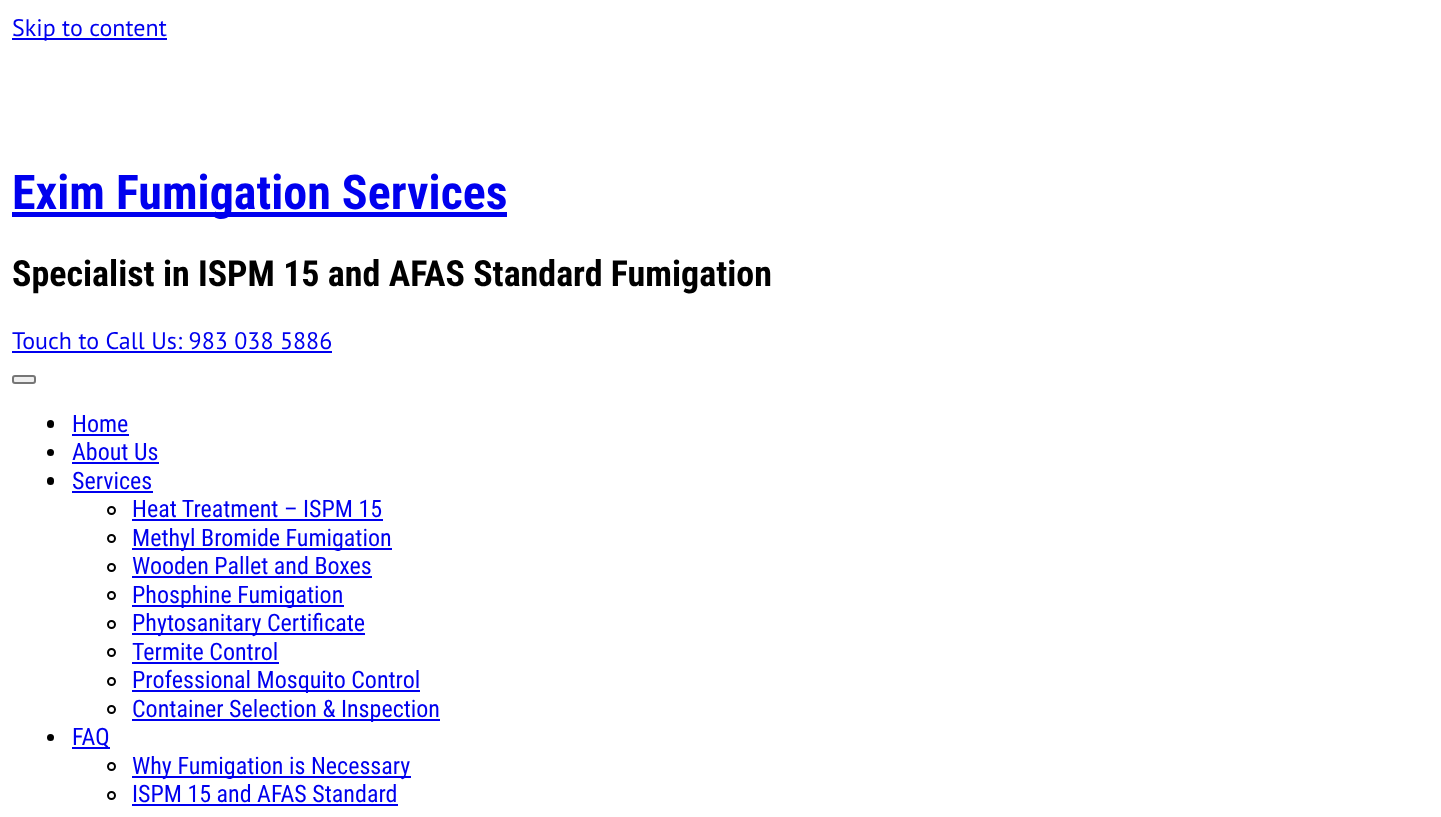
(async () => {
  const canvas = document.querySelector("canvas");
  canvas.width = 1441;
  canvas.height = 817;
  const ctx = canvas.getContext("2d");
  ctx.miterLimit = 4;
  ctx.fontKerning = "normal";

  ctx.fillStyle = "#ffffff";
  ctx.fillRect(0, 0, 1441, 817);
  for (const [x, y, w, h, color] of [
    [12, 38, 155, 2, "#0000ee"],
    [12, 212, 495, 5, "#0000ee"],
    [12, 351, 320, 2, "#0000ee"],
  ]) {
    ctx.fillStyle = color;
    ctx.fillRect(x, y, w, h);
  }
  ctx.fillStyle = "#efefef";
  ctx.beginPath();
  ctx.roundRect(13, 376, 22, 7, 2);
  ctx.fill();
  ctx.strokeStyle = "#767676";
  ctx.lineWidth = 2;
  ctx.stroke();
  ctx.fillStyle = "#000000";
  ctx.beginPath();
  ctx.roundRect(47, 420, 7, 8, 3.5);
  ctx.fill();
  ctx.fillStyle = "#0000ee";
  ctx.fillRect(72, 434, 57, 2);
  ctx.fillStyle = "#000000";
  ctx.beginPath();
  ctx.arc(50.5, 452.5, 3.5, 0, Math.PI * 2);
  ctx.fill();
  ctx.fillStyle = "#0000ee";
  ctx.fillRect(72, 462, 87, 2);
  ctx.fillStyle = "#000000";
  ctx.beginPath();
  ctx.roundRect(47, 477, 7, 8, 3.5);
  ctx.fill();
  ctx.fillStyle = "#0000ee";
  ctx.fillRect(72, 491, 81, 2);
  ctx.beginPath();
  ctx.arc(111.5, 510.5, 3.5, 0, Math.PI * 2);
  ctx.strokeStyle = "#000000";
  ctx.stroke();
  ctx.fillRect(132, 519, 251, 2);
  ctx.beginPath();
  ctx.arc(111.5, 538.5, 3.5, 0, Math.PI * 2);
  ctx.stroke();
  ctx.fillRect(132, 548, 260, 2);
  ctx.beginPath();
  ctx.arc(111.5, 567.5, 3.5, 0, Math.PI * 2);
  ctx.stroke();
  ctx.fillRect(132, 576, 240, 2);
  ctx.beginPath();
  ctx.arc(111.5, 595.5, 3.5, 0, Math.PI * 2);
  ctx.stroke();
  ctx.fillRect(132, 605, 212, 2);
  ctx.beginPath();
  ctx.arc(111.5, 624.5, 3.5, 0, Math.PI * 2);
  ctx.stroke();
  ctx.fillRect(132, 633, 233, 2);
  ctx.beginPath();
  ctx.arc(111.5, 652.5, 3.5, 0, Math.PI * 2);
  ctx.stroke();
  ctx.fillRect(132, 662, 147, 2);
  ctx.beginPath();
  ctx.arc(111.5, 681.5, 3.5, 0, Math.PI * 2);
  ctx.stroke();
  ctx.fillRect(132, 690, 288, 2);
  ctx.beginPath();
  ctx.arc(111.5, 709.5, 3.5, 0, Math.PI * 2);
  ctx.stroke();
  ctx.fillRect(132, 719, 308, 2);
  ctx.fillStyle = "#000000";
  ctx.beginPath();
  ctx.arc(50.5, 737.5, 3.5, 0, Math.PI * 2);
  ctx.fill();
  ctx.fillStyle = "#0000ee";
  ctx.fillRect(72, 747, 38, 2);
  ctx.beginPath();
  ctx.arc(111.5, 766.5, 3.5, 0, Math.PI * 2);
  ctx.stroke();
  ctx.fillRect(132, 776, 279, 2);
  ctx.beginPath();
  ctx.arc(111.5, 795.5, 3.5, 0, Math.PI * 2);
  ctx.stroke();
  ctx.fillRect(132, 804, 266, 2);
  ctx.font = "24px PT Sans";
  ctx.fillText("Skip to content", 12, 36);
  ctx.font = "bold 48px Roboto Condensed";
  ctx.fillText("Exim Fumigation Services", 12, 209);
  ctx.font = "bold 36px Roboto Condensed";
  ctx.fillStyle = "#000000";
  ctx.fillText("Specialist in ISPM 15 and AFAS Standard Fumigation", 12, 286);
  ctx.font = "24px PT Sans";
  ctx.fillStyle = "#0000ee";
  ctx.fillText("Touch to Call Us: 983 038 5886", 12, 349);
  ctx.font = "24px Roboto Condensed";
  for (const [text, x, y] of [
    ["Home", 72, 432],
    ["About Us", 72, 460],
    ["Services", 72, 489],
    ["Heat Treatment – ISPM 15", 132, 517],
    ["Methyl Bromide Fumigation", 132, 546],
    ["Wooden Pallet and Boxes", 132, 574],
    ["Phosphine Fumigation", 132, 603],
    ["Phytosanitary Certificate", 132, 631],
    ["Termite Control", 132, 660],
    ["Professional Mosquito Control", 132, 688],
    ["Container Selection & Inspection", 132, 717],
    ["FAQ", 72, 745],
    ["Why Fumigation is Necessary", 132, 774],
    ["ISPM 15 and AFAS Standard", 132, 802],
  ]) {
    ctx.fillText(text, x, y);
  }
})();
